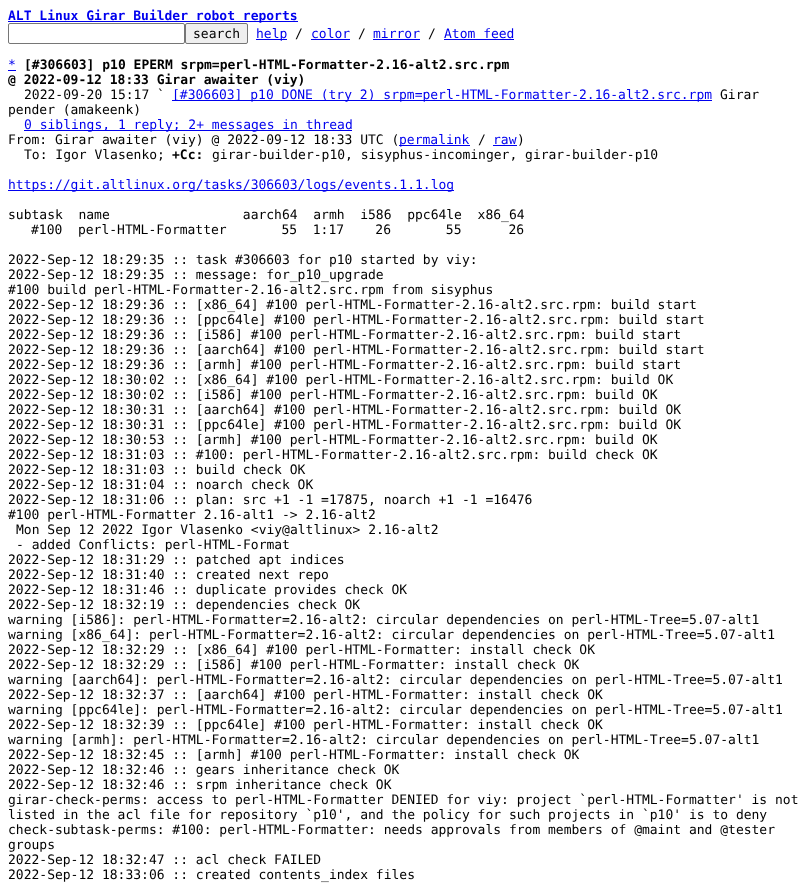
(async () => {
  const canvas = document.querySelector("canvas");
  canvas.width = 812;
  canvas.height = 890;
  const ctx = canvas.getContext("2d");
  ctx.miterLimit = 4;
  ctx.fontKerning = "normal";

  ctx.fillStyle = "#ffffff";
  ctx.fillRect(0, 0, 812, 890);
  ctx.fillStyle = "#0000ee";
  ctx.fillRect(8, 21, 290, 1);
  ctx.beginPath();
  ctx.roundRect(8.5, 23.5, 176, 20, 1.5);
  ctx.strokeStyle = "#767676";
  ctx.stroke();
  ctx.fillStyle = "#efefef";
  ctx.beginPath();
  ctx.roundRect(185.5, 23.5, 62, 20, 1.5);
  ctx.fill();
  ctx.stroke();
  for (const [x, y, w, h, color] of [
    [256, 39, 31, 1, "#0000ee"],
    [311, 39, 39, 1, "#0000ee"],
    [373, 39, 47, 1, "#0000ee"],
    [444, 39, 70, 1, "#0000ee"],
    [8, 70, 8, 1, "#0000ee"],
    [172, 100, 540, 1, "#0000ee"],
    [24, 130, 328, 1, "#0000ee"],
    [399, 145, 71, 1, "#0000ee"],
    [493, 145, 24, 1, "#0000ee"],
    [8, 190, 446, 1, "#0000ee"],
  ]) {
    ctx.fillStyle = color;
    ctx.fillRect(x, y, w, h);
  }
  ctx.font = "bold 13px DejaVu Sans Mono";
  ctx.fillText("ALT Linux Girar Builder robot reports", 8, 20);
  ctx.font = "13px DejaVu Sans Mono";
  ctx.fillStyle = "#000000";
  ctx.fillText("search", 193, 38);
  ctx.fillStyle = "#0000ee";
  ctx.fillText("help", 256, 38);
  ctx.fillStyle = "#000000";
  ctx.fillText("/", 295, 38);
  ctx.fillStyle = "#0000ee";
  ctx.fillText("color", 311, 38);
  ctx.fillStyle = "#000000";
  ctx.fillText("/", 358, 38);
  ctx.fillStyle = "#0000ee";
  ctx.fillText("mirror", 373, 38);
  ctx.fillStyle = "#000000";
  ctx.fillText("/", 428, 38);
  ctx.fillStyle = "#0000ee";
  ctx.fillText("Atom feed", 444, 38);
  ctx.fillText("*", 8, 69);
  ctx.font = "bold 13px DejaVu Sans Mono";
  ctx.fillStyle = "#000000";
  ctx.fillText("[#306603] p10 EPERM srpm=perl-HTML-Formatter-2.16-alt2.src.rpm", 24, 69);
  ctx.fillText("@ 2022-09-12 18:33 Girar awaiter (viy)", 8, 84);
  ctx.font = "13px DejaVu Sans Mono";
  ctx.fillText("2022-09-20 15:17 `", 24, 99);
  ctx.fillStyle = "#0000ee";
  ctx.fillText("[#306603] p10 DONE (try 2) srpm=perl-HTML-Formatter-2.16-alt2.src.rpm", 172, 99);
  ctx.fillStyle = "#000000";
  ctx.fillText("Girar", 720, 99);
  ctx.fillText("pender (amakeenk)", 8, 114);
  ctx.fillStyle = "#0000ee";
  ctx.fillText("0 siblings, 1 reply; 2+ messages in thread", 24, 129);
  ctx.fillStyle = "#000000";
  ctx.fillText("From: Girar awaiter (viy) @ 2022-09-12 18:33 UTC (", 8, 144);
  ctx.fillStyle = "#0000ee";
  ctx.fillText("permalink", 399, 144);
  ctx.fillStyle = "#000000";
  ctx.fillText("/", 478, 144);
  ctx.fillStyle = "#0000ee";
  ctx.fillText("raw", 493, 144);
  ctx.fillStyle = "#000000";
  ctx.fillText(")", 517, 144);
  ctx.fillText("To: Igor Vlasenko;", 24, 159);
  ctx.font = "bold 13px DejaVu Sans Mono";
  ctx.fillText("+Cc:", 172, 159);
  ctx.font = "13px DejaVu Sans Mono";
  ctx.fillText("girar-builder-p10, sisyphus-incominger, girar-builder-p10", 212, 159);
  ctx.fillStyle = "#0000ee";
  ctx.fillText("https://git.altlinux.org/tasks/306603/logs/events.1.1.log", 8, 189);
  ctx.fillStyle = "#000000";
  for (const [text, x, y] of [
    ["subtask  name                 aarch64  armh  i586  ppc64le  x86_64", 8, 219],
    ["#100  perl-HTML-Formatter       55  1:17    26       55      26", 31, 234],
    ["2022-Sep-12 18:29:35 :: task #306603 for p10 started by viy:", 8, 264],
    ["2022-Sep-12 18:29:35 :: message: for_p10_upgrade", 8, 279],
    ["#100 build perl-HTML-Formatter-2.16-alt2.src.rpm from sisyphus", 8, 294],
    ["2022-Sep-12 18:29:36 :: [x86_64] #100 perl-HTML-Formatter-2.16-alt2.src.rpm: build start", 8, 309],
    ["2022-Sep-12 18:29:36 :: [ppc64le] #100 perl-HTML-Formatter-2.16-alt2.src.rpm: build start", 8, 324],
    ["2022-Sep-12 18:29:36 :: [i586] #100 perl-HTML-Formatter-2.16-alt2.src.rpm: build start", 8, 339],
    ["2022-Sep-12 18:29:36 :: [aarch64] #100 perl-HTML-Formatter-2.16-alt2.src.rpm: build start", 8, 354],
    ["2022-Sep-12 18:29:36 :: [armh] #100 perl-HTML-Formatter-2.16-alt2.src.rpm: build start", 8, 369],
    ["2022-Sep-12 18:30:02 :: [x86_64] #100 perl-HTML-Formatter-2.16-alt2.src.rpm: build OK", 8, 384],
    ["2022-Sep-12 18:30:02 :: [i586] #100 perl-HTML-Formatter-2.16-alt2.src.rpm: build OK", 8, 399],
    ["2022-Sep-12 18:30:31 :: [aarch64] #100 perl-HTML-Formatter-2.16-alt2.src.rpm: build OK", 8, 414],
    ["2022-Sep-12 18:30:31 :: [ppc64le] #100 perl-HTML-Formatter-2.16-alt2.src.rpm: build OK", 8, 429],
    ["2022-Sep-12 18:30:53 :: [armh] #100 perl-HTML-Formatter-2.16-alt2.src.rpm: build OK", 8, 444],
    ["2022-Sep-12 18:31:03 :: #100: perl-HTML-Formatter-2.16-alt2.src.rpm: build check OK", 8, 459],
    ["2022-Sep-12 18:31:03 :: build check OK", 8, 474],
    ["2022-Sep-12 18:31:04 :: noarch check OK", 8, 489],
    ["2022-Sep-12 18:31:06 :: plan: src +1 -1 =17875, noarch +1 -1 =16476", 8, 504],
    ["#100 perl-HTML-Formatter 2.16-alt1 -> 2.16-alt2", 8, 519],
    ["Mon Sep 12 2022 Igor Vlasenko <viy@altlinux> 2.16-alt2", 16, 534],
    ["- added Conflicts: perl-HTML-Format", 16, 549],
    ["2022-Sep-12 18:31:29 :: patched apt indices", 8, 564],
    ["2022-Sep-12 18:31:40 :: created next repo", 8, 579],
    ["2022-Sep-12 18:31:46 :: duplicate provides check OK", 8, 594],
    ["2022-Sep-12 18:32:19 :: dependencies check OK", 8, 609],
    ["warning [i586]: perl-HTML-Formatter=2.16-alt2: circular dependencies on perl-HTML-Tree=5.07-alt1", 8, 624],
    ["warning [x86_64]: perl-HTML-Formatter=2.16-alt2: circular dependencies on perl-HTML-Tree=5.07-alt1", 8, 639],
    ["2022-Sep-12 18:32:29 :: [x86_64] #100 perl-HTML-Formatter: install check OK", 8, 654],
    ["2022-Sep-12 18:32:29 :: [i586] #100 perl-HTML-Formatter: install check OK", 8, 669],
    ["warning [aarch64]: perl-HTML-Formatter=2.16-alt2: circular dependencies on perl-HTML-Tree=5.07-alt1", 8, 684],
    ["2022-Sep-12 18:32:37 :: [aarch64] #100 perl-HTML-Formatter: install check OK", 8, 699],
    ["warning [ppc64le]: perl-HTML-Formatter=2.16-alt2: circular dependencies on perl-HTML-Tree=5.07-alt1", 8, 714],
    ["2022-Sep-12 18:32:39 :: [ppc64le] #100 perl-HTML-Formatter: install check OK", 8, 729],
    ["warning [armh]: perl-HTML-Formatter=2.16-alt2: circular dependencies on perl-HTML-Tree=5.07-alt1", 8, 744],
    ["2022-Sep-12 18:32:45 :: [armh] #100 perl-HTML-Formatter: install check OK", 8, 759],
    ["2022-Sep-12 18:32:46 :: gears inheritance check OK", 8, 774],
    ["2022-Sep-12 18:32:46 :: srpm inheritance check OK", 8, 789],
    ["girar-check-perms: access to perl-HTML-Formatter DENIED for viy: project `perl-HTML-Formatter' is not", 8, 804],
    ["listed in the acl file for repository `p10', and the policy for such projects in `p10' is to deny", 8, 819],
    ["check-subtask-perms: #100: perl-HTML-Formatter: needs approvals from members of @maint and @tester", 8, 834],
    ["groups", 8, 849],
    ["2022-Sep-12 18:32:47 :: acl check FAILED", 8, 864],
    ["2022-Sep-12 18:33:06 :: created contents_index files", 8, 879],
  ]) {
    ctx.fillText(text, x, y);
  }
})();
